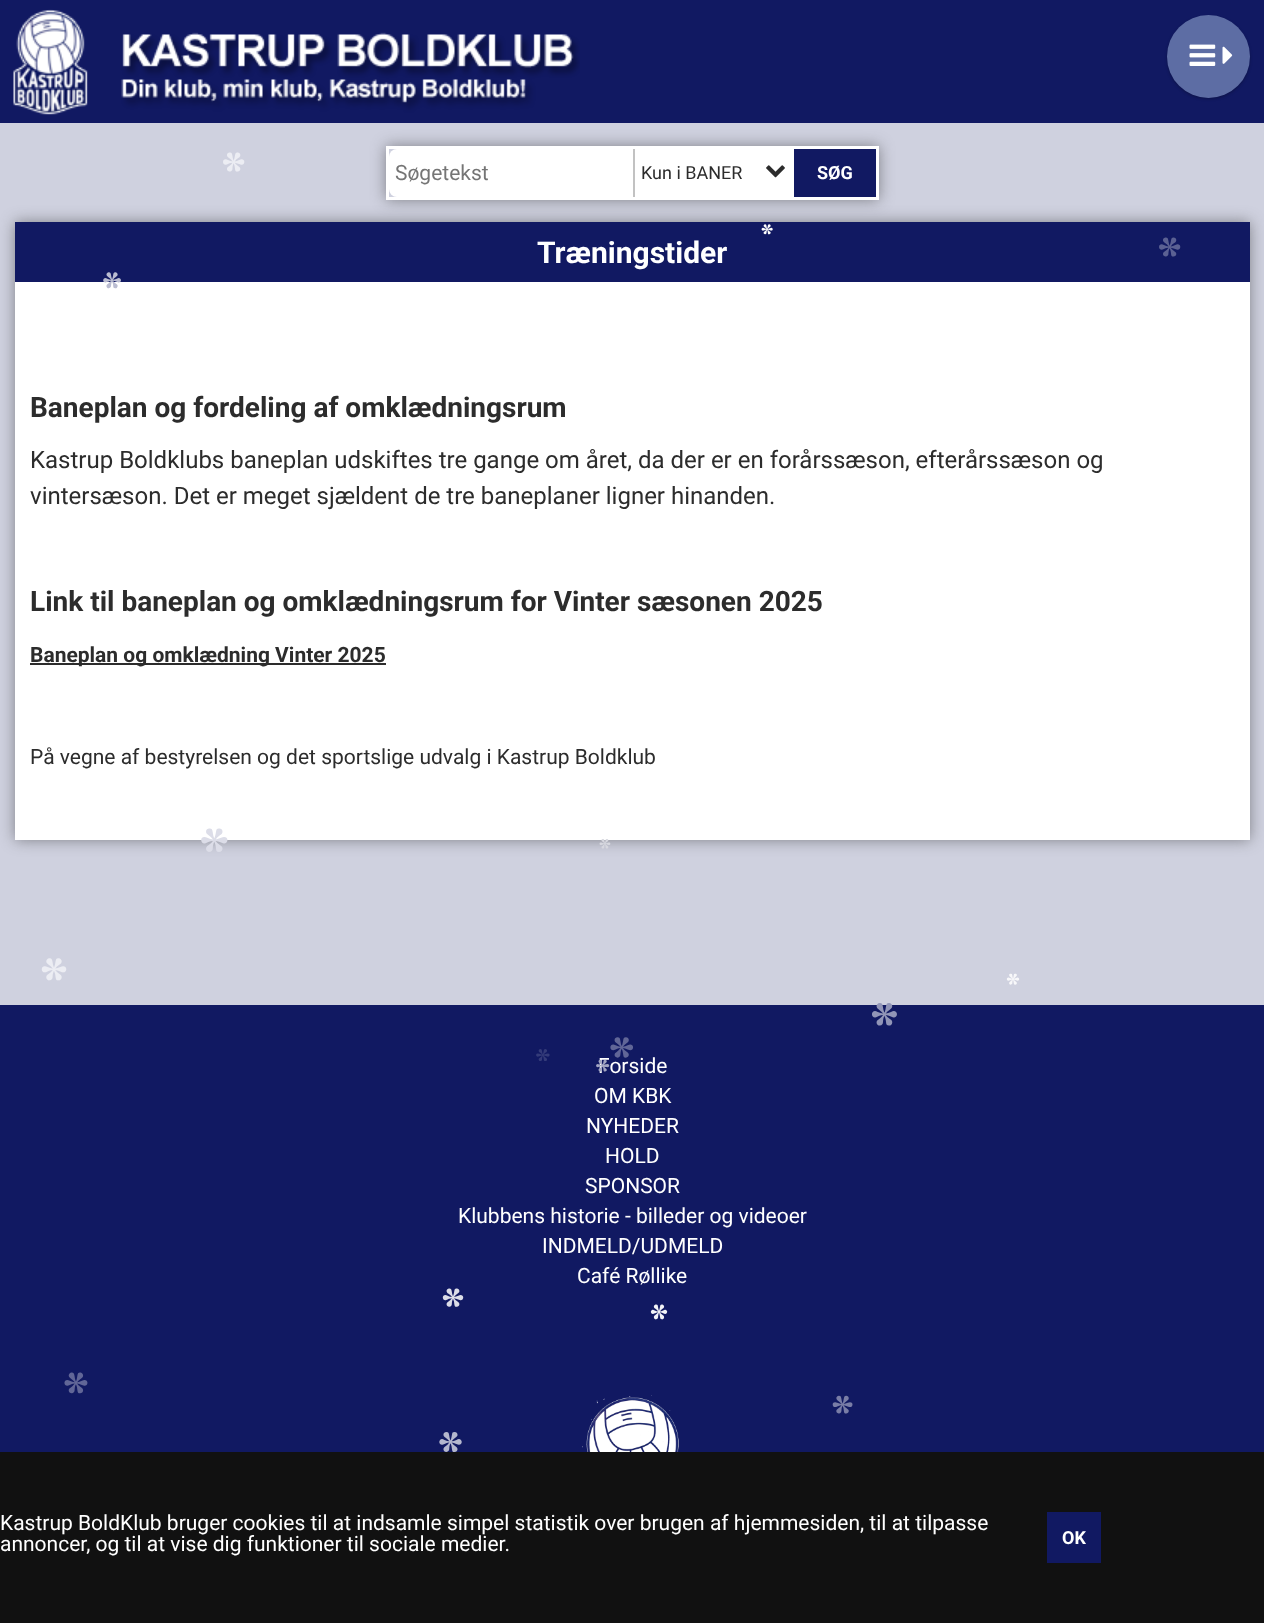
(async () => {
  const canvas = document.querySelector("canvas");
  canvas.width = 1264;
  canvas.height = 1623;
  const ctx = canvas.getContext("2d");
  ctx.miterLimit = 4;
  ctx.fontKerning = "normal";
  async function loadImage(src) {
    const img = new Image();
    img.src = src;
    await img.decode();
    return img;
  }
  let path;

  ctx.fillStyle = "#111962";
  ctx.fillRect(0, 0, 1264, 1623);
  ctx.drawImage(await loadImage("img/1.png"), 13, 9, 567, 106);
  ctx.fillStyle = "rgba(0, 0, 0, 0.24)";
  ctx.filter = "blur(1.5px)";
  ctx.beginPath();
  ctx.roundRect(1167, 17, 83, 82, 41);
  ctx.fill();
  ctx.filter = "none";
  ctx.fillStyle = "#5d6da4";
  ctx.beginPath();
  ctx.arc(1208.5, 56.5, 41.5, 0, Math.PI * 2);
  ctx.fill();
  ctx.drawImage(await loadImage("img/2.png"), 1189, 44, 27, 22);
  ctx.drawImage(await loadImage("img/3.png"), 1222, 46, 11, 18);
  ctx.drawImage(await loadImage("img/4.png"), 582, 1395, 97, 57);
  ctx.fillStyle = "#cfd1df";
  ctx.fillRect(0, 123, 1264, 882);
  ctx.fillStyle = "rgba(48, 48, 48, 0.5)";
  ctx.filter = "blur(7.5px)";
  ctx.beginPath();
  ctx.rect(15, 222, 1235, 618);
  ctx.fill();
  ctx.filter = "none";
  ctx.fillStyle = "#111962";
  ctx.fillRect(15, 222, 1235, 60);
  ctx.save();
  path = new Path2D("M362 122H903V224H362ZM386 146H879V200H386Z");
  ctx.clip(path, "evenodd");
  ctx.fillStyle = "rgba(48, 48, 48, 0.5)";
  ctx.filter = "blur(7.5px)";
  ctx.beginPath();
  ctx.rect(386, 146, 493, 54);
  ctx.fill();
  ctx.filter = "none";
  ctx.restore();
  ctx.strokeStyle = "#ffffff";
  ctx.lineWidth = 3;
  ctx.strokeRect(387.5, 147.5, 490, 51);
  ctx.fillStyle = "#ffffff";
  ctx.beginPath();
  ctx.roundRect(389, 149, 250, 48, [8, 0, 0, 8]);
  ctx.fill();
  ctx.fillRect(639, 149, 155, 48);
  ctx.fillStyle = "#c2c2c2";
  ctx.fillRect(633, 149, 2, 48);
  ctx.drawImage(await loadImage("img/5.png"), 766, 165, 19, 13);
  for (const [x, y, w, h, color] of [
    [794, 149, 82, 48, "#111962"],
    [15, 282, 1235, 558, "#ffffff"],
    [30, 663, 356, 2, "#2c2c2c"],
    [0, 1452, 1264, 171, "#111111"],
    [1047, 1512, 54, 51, "#111962"],
  ]) {
    ctx.fillStyle = color;
    ctx.fillRect(x, y, w, h);
  }
  ctx.font = "73px Caladea";
  ctx.fillStyle = "#ecedf3";
  ctx.fillText("*", 218, 200);
  ctx.font = "38px Caladea";
  ctx.fillStyle = "#ffffff";
  ctx.fillText("*", 759, 249);
  ctx.font = "73px Caladea";
  ctx.fillStyle = "#5b6193";
  ctx.fillText("*", 1154, 285);
  ctx.font = "61px Caladea";
  ctx.fillStyle = "#babcd1";
  ctx.fillText("*", 99, 312);
  ctx.font = "90px Caladea";
  ctx.fillStyle = "#dcdde8";
  ctx.fillText("*", 195, 887);
  ctx.font = "37px Caladea";
  ctx.fillStyle = "#d7d8df";
  ctx.fillText("*", 597, 863);
  ctx.font = "84px Caladea";
  ctx.fillStyle = "#ecedf3";
  ctx.fillText("*", 36, 1013);
  ctx.font = "42px Caladea";
  ctx.fillStyle = "#f8f8fa";
  ctx.fillText("*", 1004, 1001);
  ctx.font = "86px Caladea";
  ctx.fillStyle = "#9195b7";
  ctx.fillText("*", 866, 1059);
  ctx.font = "46px Caladea";
  ctx.fillStyle = "#343b79";
  ctx.fillText("*", 533, 1079);
  ctx.font = "78px Caladea";
  ctx.fillStyle = "#616697";
  ctx.fillText("*", 605, 1088);
  ctx.font = "70px Caladea";
  ctx.fillStyle = "#dcdde8";
  ctx.fillText("*", 438, 1334);
  ctx.font = "56px Caladea";
  ctx.fillStyle = "#f2f3f7";
  ctx.fillText("*", 647, 1341);
  ctx.font = "79px Caladea";
  ctx.fillStyle = "#616697";
  ctx.fillText("*", 59, 1424);
  ctx.font = "68px Caladea";
  ctx.fillStyle = "#797da6";
  ctx.fillText("*", 828, 1440);
  ctx.font = "77px Caladea";
  ctx.fillStyle = "#b4b7ce";
  ctx.fillText("*", 434, 1482);
  ctx.font = "21px Roboto";
  ctx.fillStyle = "#ffffff";
  ctx.fillText("Forside", 598, 1073);
  ctx.font = "45px Caladea";
  ctx.fillStyle = "#a2a5c2";
  ctx.fillText("*", 593, 1089);
  ctx.font = "21px Roboto";
  ctx.fillStyle = "#ffffff";
  for (const [text, x, y] of [
    ["OM KBK", 594, 1103],
    ["NYHEDER", 586, 1133],
    ["HOLD", 605, 1163],
    ["SPONSOR", 585, 1193],
    ["Klubbens historie - billeder og videoer", 458, 1223],
    ["INDMELD/UDMELD", 542, 1253],
    ["Café Røllike", 577, 1283],
  ]) {
    ctx.fillText(text, x, y);
  }
  ctx.fillStyle = "#757575";
  ctx.fillText("Søgetekst", 395, 180);
  ctx.font = "18px Roboto";
  ctx.fillStyle = "#2c2c2c";
  ctx.fillText("Kun i BANER", 641, 179);
  ctx.font = "bold 18px Roboto";
  ctx.fillStyle = "#ffffff";
  ctx.fillText("SØG", 817, 179);
  ctx.font = "bold 30px Roboto";
  ctx.fillText("Træningstider", 537, 263);
  ctx.font = "bold 28px Roboto";
  ctx.fillStyle = "#2c2c2c";
  ctx.fillText("Baneplan og fordeling af omklædningsrum", 30, 417);
  ctx.font = "24px Roboto";
  ctx.fillText("Kastrup Boldklubs baneplan udskiftes tre gange om året, da der er en forårssæson, efterårssæson og", 30, 468);
  ctx.fillText("vintersæson. Det er meget sjældent de tre baneplaner ligner hinanden.", 30, 504);
  ctx.font = "bold 28px Roboto";
  ctx.fillText("Link til baneplan og omklædningsrum for Vinter sæsonen 2025", 30, 611);
  ctx.font = "bold 21px Roboto";
  ctx.fillText("Baneplan og omklædning Vinter 2025", 30, 662);
  ctx.font = "21px Roboto";
  ctx.fillText("På vegne af bestyrelsen og det sportslige udvalg i Kastrup Boldklub", 30, 764);
  ctx.fillStyle = "#ffffff";
  ctx.fillText("Kastrup BoldKlub bruger cookies til at indsamle simpel statistik over brugen af hjemmesiden, til at tilpasse", 0, 1530);
  ctx.fillText("annoncer, og til at vise dig funktioner til sociale medier.", 0, 1551);
  ctx.font = "bold 18px Roboto";
  ctx.fillText("OK", 1062, 1544);
})();
